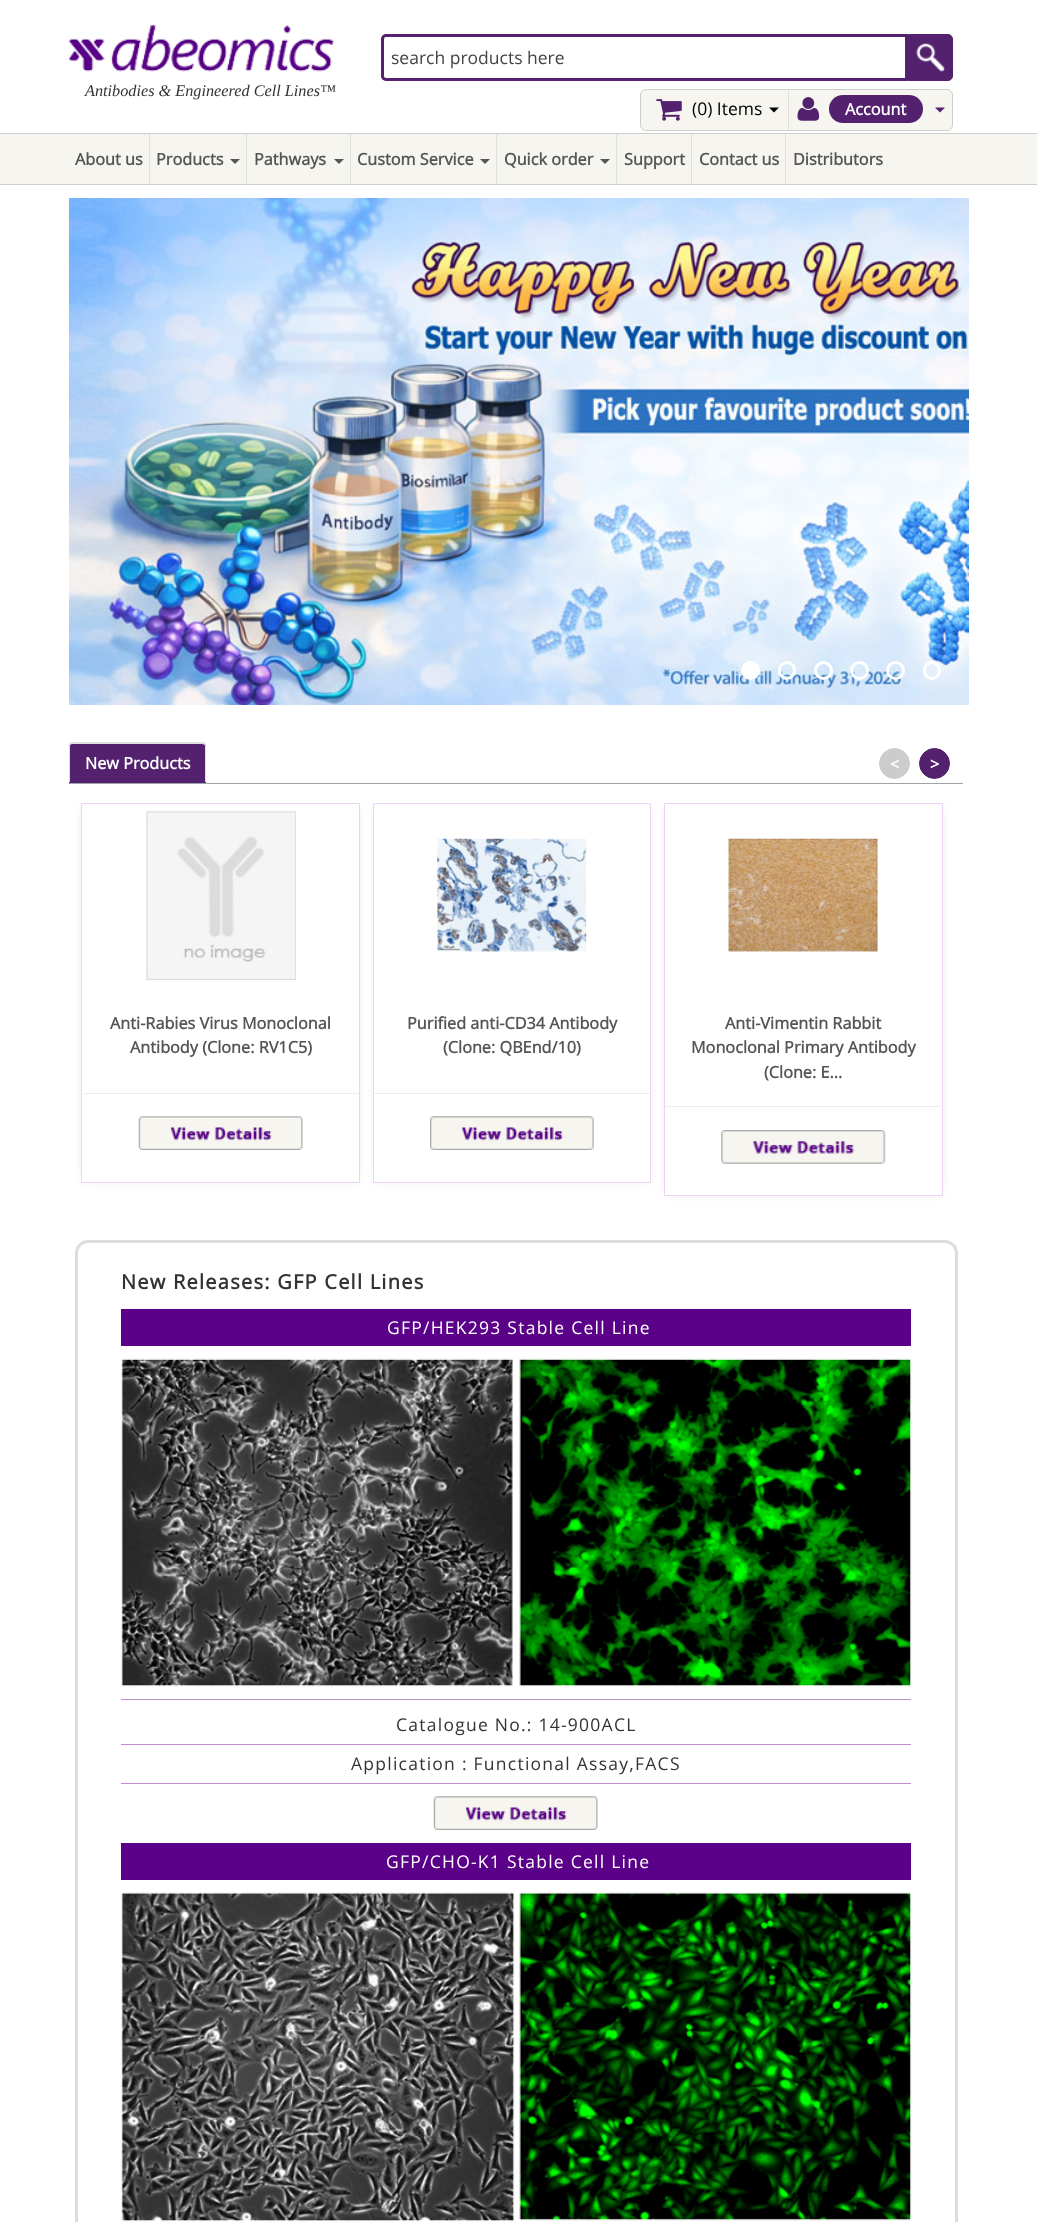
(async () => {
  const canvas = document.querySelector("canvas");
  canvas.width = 1037;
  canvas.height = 2222;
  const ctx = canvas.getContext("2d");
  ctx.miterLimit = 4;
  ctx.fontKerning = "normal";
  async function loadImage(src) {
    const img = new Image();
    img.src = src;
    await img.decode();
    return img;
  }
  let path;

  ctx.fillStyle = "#ffffff";
  ctx.fillRect(0, 0, 1037, 2222);
  ctx.beginPath();
  ctx.roundRect(382.5, 35.5, 524, 44, [3.5, 0, 0, 3.5]);
  ctx.strokeStyle = "#53216d";
  ctx.lineWidth = 3;
  ctx.stroke();
  ctx.fillStyle = "#53216d";
  ctx.beginPath();
  ctx.roundRect(908.5, 34.5, 44, 46, [0, 4.5, 4.5, 0]);
  ctx.fill();
  ctx.lineWidth = 1;
  ctx.stroke();
  ctx.drawImage(await loadImage("img/1.png"), 916, 43, 29, 29);
  ctx.drawImage(await loadImage("img/2.png"), 68, 25, 267, 47);
  ctx.fillStyle = "#f6f5ef";
  ctx.beginPath();
  ctx.roundRect(640.5, 89.5, 312, 41, 5.5);
  ctx.fill();
  ctx.strokeStyle = "#cdcdcd";
  ctx.stroke();
  ctx.fillStyle = "#e0e1dc";
  ctx.fillRect(788, 90, 1, 40);
  ctx.drawImage(await loadImage("img/3.png"), 656, 99, 26, 22);
  ctx.fillStyle = "#000000";
  path = new Path2D("M769 107.5H779L774 112.5Z");
  ctx.fill(path);
  ctx.drawImage(await loadImage("img/4.png"), 797, 97, 23, 24);
  ctx.fillStyle = "#53216d";
  ctx.beginPath();
  ctx.roundRect(829, 95, 94, 28, 14);
  ctx.fill();
  path = new Path2D("M935 107.5H945L940 112.5Z");
  ctx.fill(path);
  for (const [x, y, w, h, color] of [
    [0, 134, 1037, 50, "#f6f5ef"],
    [0, 133, 1037, 1, "#cdcdcd"],
    [0, 184, 1037, 1, "#cdcdcd"],
    [149, 134, 1, 50, "#e0e1dc"],
  ]) {
    ctx.fillStyle = color;
    ctx.fillRect(x, y, w, h);
  }
  ctx.fillStyle = "#555555";
  path = new Path2D("M230 159H240L235 164Z");
  ctx.fill(path);
  ctx.fillStyle = "#e0e1dc";
  ctx.fillRect(246, 134, 1, 50);
  ctx.fillStyle = "#555555";
  path = new Path2D("M334 159H344L339 164Z");
  ctx.fill(path);
  ctx.fillStyle = "#e0e1dc";
  ctx.fillRect(350, 134, 1, 50);
  ctx.fillStyle = "#555555";
  path = new Path2D("M480 159H490L485 164Z");
  ctx.fill(path);
  ctx.fillStyle = "#e0e1dc";
  ctx.fillRect(496, 134, 1, 50);
  ctx.fillStyle = "#555555";
  path = new Path2D("M600 159H610L605 164Z");
  ctx.fill(path);
  for (const [x, y, w, h, color] of [
    [616, 134, 1, 50, "#e0e1dc"],
    [691, 134, 1, 50, "#e0e1dc"],
    [785, 134, 1, 50, "#e0e1dc"],
  ]) {
    ctx.fillStyle = color;
    ctx.fillRect(x, y, w, h);
  }
  ctx.drawImage(await loadImage("img/5.png"), 69, 198, 900, 507);
  ctx.fillStyle = "#ffffff";
  ctx.beginPath();
  ctx.arc(750.5, 670.5, 8, 0, Math.PI * 2);
  ctx.fill();
  ctx.strokeStyle = "#ffffff";
  ctx.lineWidth = 3;
  ctx.stroke();
  ctx.beginPath();
  ctx.roundRect(779.5, 662.5, 15, 16, 7.5);
  ctx.stroke();
  ctx.beginPath();
  ctx.arc(823.5, 670.5, 8, 0, Math.PI * 2);
  ctx.stroke();
  ctx.beginPath();
  ctx.arc(859.5, 670.5, 8, 0, Math.PI * 2);
  ctx.stroke();
  ctx.beginPath();
  ctx.arc(895.5, 670.5, 8, 0, Math.PI * 2);
  ctx.stroke();
  ctx.beginPath();
  ctx.roundRect(924.5, 662.5, 15, 16, 7.5);
  ctx.stroke();
  ctx.fillStyle = "#9da4ac";
  ctx.fillRect(69, 783, 894, 1);
  ctx.fillStyle = "#53216d";
  ctx.beginPath();
  ctx.roundRect(69, 743, 137, 40, [4, 4, 0, 0]);
  ctx.fill();
  ctx.fillStyle = "#dfdfdd";
  path = new Path2D("M72 742H202C205 742 206 744 206 746V782H69V746C69 744 70 742 72 742ZM72 744H202C204 744 205 745 205 746V782H70V746C70 745 71 744 72 744Z");
  ctx.fill(path, "evenodd");
  ctx.fillStyle = "#cccccc";
  ctx.beginPath();
  ctx.arc(894.5, 763.5, 15, 0, Math.PI * 2);
  ctx.fill();
  ctx.strokeStyle = "#cccccc";
  ctx.lineWidth = 1;
  ctx.stroke();
  ctx.fillStyle = "#53216d";
  ctx.beginPath();
  ctx.arc(934.5, 763.5, 15, 0, Math.PI * 2);
  ctx.fill();
  ctx.strokeStyle = "#53216d";
  ctx.stroke();
  ctx.save();
  ctx.beginPath();
  ctx.rect(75, 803, 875, 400);
  ctx.clip();
  ctx.fillStyle = "rgba(0, 0, 0, 0.2)";
  ctx.filter = "blur(6px)";
  ctx.beginPath();
  ctx.rect(86, 808, 269, 370);
  ctx.fill();
  ctx.filter = "none";
  ctx.restore();
  ctx.fillStyle = "#ffffff";
  ctx.beginPath();
  ctx.rect(81.5, 803.5, 278, 379);
  ctx.fill();
  ctx.strokeStyle = "#eed2f7";
  ctx.stroke();
  ctx.drawImage(await loadImage("img/6.png"), 146, 811, 150, 169);
  ctx.fillStyle = "#eeeeee";
  ctx.fillRect(83, 1093, 276, 1);
  ctx.drawImage(await loadImage("img/7.png"), 138, 1116, 165, 34);
  ctx.save();
  ctx.beginPath();
  ctx.rect(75, 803, 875, 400);
  ctx.clip();
  ctx.fillStyle = "rgba(0, 0, 0, 0.2)";
  ctx.filter = "blur(6px)";
  ctx.beginPath();
  ctx.rect(378, 808, 268, 370);
  ctx.fill();
  ctx.filter = "none";
  ctx.restore();
  ctx.fillStyle = "#ffffff";
  ctx.beginPath();
  ctx.rect(373.5, 803.5, 277, 379);
  ctx.fill();
  ctx.stroke();
  ctx.drawImage(await loadImage("img/8.png"), 437, 838, 150, 114);
  ctx.fillStyle = "#eeeeee";
  ctx.fillRect(374, 1093, 276, 1);
  ctx.drawImage(await loadImage("img/9.png"), 430, 1116, 164, 34);
  ctx.save();
  ctx.beginPath();
  ctx.rect(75, 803, 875, 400);
  ctx.clip();
  ctx.fillStyle = "rgba(0, 0, 0, 0.2)";
  ctx.filter = "blur(6px)";
  ctx.beginPath();
  ctx.rect(669, 808, 269, 383);
  ctx.fill();
  ctx.filter = "none";
  ctx.restore();
  ctx.fillStyle = "#ffffff";
  ctx.beginPath();
  ctx.rect(664.5, 803.5, 278, 392);
  ctx.fill();
  ctx.stroke();
  ctx.drawImage(await loadImage("img/10.png"), 728, 838, 150, 114);
  ctx.fillStyle = "#eeeeee";
  ctx.fillRect(665, 1106, 276, 1);
  ctx.drawImage(await loadImage("img/11.png"), 721, 1130, 165, 34);
  ctx.beginPath();
  ctx.roundRect(76.5, 1241.5, 880, 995, 11.5);
  ctx.strokeStyle = "#dddddd";
  ctx.lineWidth = 3;
  ctx.stroke();
  ctx.fillStyle = "#5b0088";
  ctx.fillRect(121, 1309, 790, 37);
  ctx.fillStyle = "#c18dce";
  ctx.fillRect(121, 1699, 790, 1);
  ctx.drawImage(await loadImage("img/12.png"), 121, 1358, 791, 329);
  ctx.fillRect(121, 1744, 790, 1);
  ctx.fillRect(121, 1783, 790, 1);
  ctx.drawImage(await loadImage("img/13.png"), 433, 1796, 165, 34);
  ctx.fillStyle = "#5b0088";
  ctx.fillRect(121, 1843, 790, 37);
  ctx.drawImage(await loadImage("img/14.png"), 121, 1892, 791, 330);
  ctx.font = "17.5px Open Sans";
  ctx.fillStyle = "#444444";
  ctx.fillText("search products here", 391, 64);
  ctx.font = "italic 16.25px Liberation Serif";
  ctx.fillStyle = "#333333";
  ctx.fillText("Antibodies & Engineered Cell Lines™", 85, 96);
  ctx.font = "17.5px Open Sans";
  ctx.fillStyle = "#000000";
  ctx.fillText("(0) Items", 692, 115);
  ctx.font = "bold 16.25px Open Sans";
  ctx.fillStyle = "#ffffff";
  ctx.fillText("Account", 845, 115);
  ctx.fillStyle = "#555555";
  for (const [text, x, y] of [
    ["About us", 75, 165],
    ["Products", 156, 165],
    ["Pathways", 254, 165],
    ["Custom Service", 357, 165],
    ["Quick order", 504, 165],
    ["Support", 624, 165],
    ["Contact us", 699, 165],
    ["Distributors", 793, 165],
  ]) {
    ctx.fillText(text, x, y);
  }
  ctx.fillStyle = "#ffffff";
  for (const [text, x, y] of [
    ["New Products", 85, 769],
    ["<", 890, 770],
    [">", 930, 770],
  ]) {
    ctx.fillText(text, x, y);
  }
  ctx.fillStyle = "#555555";
  for (const [text, x, y] of [
    ["Anti-Rabies Virus Monoclonal", 110, 1029],
    ["Antibody (Clone: RV1C5)", 130, 1053],
    ["Purified anti-CD34 Antibody", 407, 1029],
    ["(Clone: QBEnd/10)", 443, 1053],
    ["Anti-Vimentin Rabbit", 725, 1029],
    ["Monoclonal Primary Antibody", 691, 1053],
    ["(Clone: E...", 764, 1078],
  ]) {
    ctx.fillText(text, x, y);
  }
  ctx.letterSpacing = "1.25px";
  ctx.font = "bold 20px Open Sans";
  ctx.fillStyle = "#333333";
  ctx.fillText("New Releases: GFP Cell Lines", 121, 1289);
  ctx.font = "17.5px Open Sans";
  ctx.fillStyle = "#ffffff";
  ctx.fillText("GFP/HEK293 Stable Cell Line", 387, 1334);
  ctx.fillStyle = "#333333";
  ctx.fillText("Catalogue No.: 14-900ACL", 396, 1731);
  ctx.fillText("Application : Functional Assay,FACS", 351, 1770);
  ctx.fillStyle = "#ffffff";
  ctx.fillText("GFP/CHO-K1 Stable Cell Line", 386, 1868);
})();
